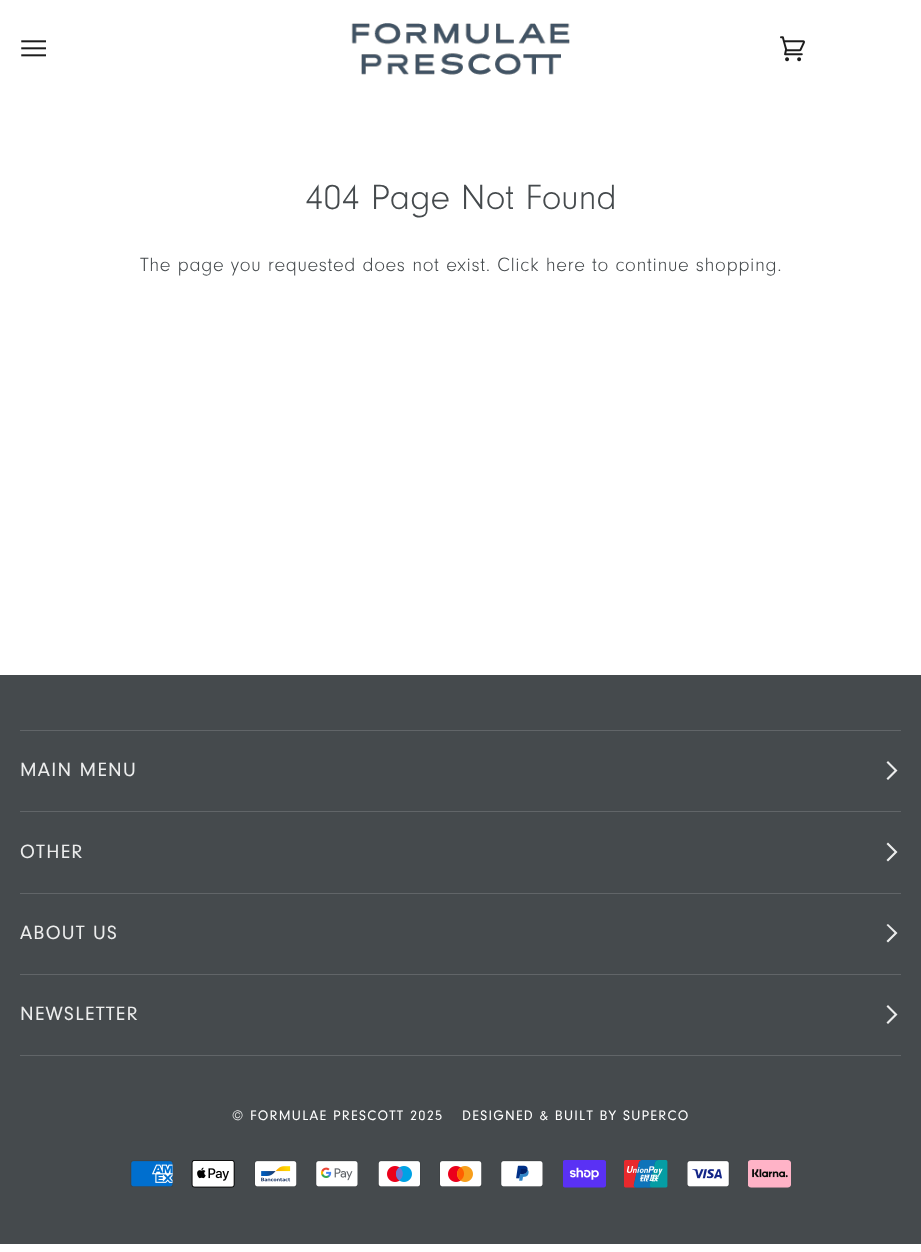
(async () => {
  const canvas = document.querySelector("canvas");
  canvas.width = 921;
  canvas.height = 1252;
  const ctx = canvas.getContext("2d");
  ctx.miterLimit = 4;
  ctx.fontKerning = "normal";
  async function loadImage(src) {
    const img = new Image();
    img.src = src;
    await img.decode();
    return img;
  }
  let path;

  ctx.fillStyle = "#ffffff";
  ctx.fillRect(0, 0, 921, 1252);
  ctx.drawImage(await loadImage("img/1.png"), 21, 40, 25, 17);
  ctx.drawImage(await loadImage("img/2.png"), 351, 23, 219, 52);
  ctx.drawImage(await loadImage("img/3.png"), 780, 36, 25, 26);
  for (const [x, y, w, h, color] of [
    [0, 675, 921, 569, "#454a4d"],
    [20, 730, 881, 1, "#616568"],
    [20, 811, 881, 1, "#616568"],
  ]) {
    ctx.fillStyle = color;
    ctx.fillRect(x, y, w, h);
  }
  ctx.fillStyle = "#eceded";
  path = new Path2D("M894.5 770.5L886.5 762.5L888 761L897.5 770.5L888 780L886.5 778.5Z");
  ctx.fill(path, "evenodd");
  ctx.fillStyle = "#616568";
  ctx.fillRect(20, 893, 881, 1);
  ctx.fillStyle = "#eceded";
  path = new Path2D("M894.5 852L886.5 844L888 842.5L897.5 852L888 861.5L886.5 860Z");
  ctx.fill(path, "evenodd");
  ctx.fillStyle = "#616568";
  ctx.fillRect(20, 974, 881, 1);
  ctx.fillStyle = "#eceded";
  path = new Path2D("M894.5 933L886.5 925L888 924L897.5 933L888 942.5L886.5 941Z");
  ctx.fill(path, "evenodd");
  ctx.fillStyle = "#616568";
  ctx.fillRect(20, 1055, 881, 1);
  ctx.fillStyle = "#eceded";
  path = new Path2D("M894.5 1014.5L886.5 1006.5L888 1005L897.5 1014.5L888 1024L886.5 1022.5Z");
  ctx.fill(path, "evenodd");
  ctx.drawImage(await loadImage("img/4.png"), 130, 1160, 43, 27);
  ctx.drawImage(await loadImage("img/5.png"), 191, 1160, 44, 28);
  ctx.drawImage(await loadImage("img/6.png"), 254, 1160, 43, 27);
  ctx.drawImage(await loadImage("img/7.png"), 315, 1160, 43, 27);
  ctx.drawImage(await loadImage("img/8.png"), 378, 1160, 43, 27);
  ctx.drawImage(await loadImage("img/9.png"), 439, 1160, 43, 27);
  ctx.drawImage(await loadImage("img/10.png"), 500, 1160, 43, 27);
  ctx.drawImage(await loadImage("img/11.png"), 563, 1160, 43, 28);
  ctx.drawImage(await loadImage("img/12.png"), 624, 1160, 44, 28);
  ctx.drawImage(await loadImage("img/13.png"), 687, 1160, 43, 27);
  ctx.drawImage(await loadImage("img/14.png"), 748, 1160, 43, 28);
  ctx.font = "300 36.5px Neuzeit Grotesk";
  ctx.fillStyle = "#454a4d";
  ctx.fillText("404 Page Not Found", 305, 209);
  ctx.letterSpacing = "0.6px";
  ctx.font = "300 20px Neuzeit Grotesk";
  ctx.fillText("The page you requested does not exist. Click here to continue shopping.", 140, 271);
  ctx.letterSpacing = "1.25px";
  ctx.font = "20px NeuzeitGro";
  ctx.fillStyle = "#eceded";
  for (const [text, x, y] of [
    ["MAIN MENU", 20, 776],
    ["OTHER", 20, 858],
    ["ABOUT US", 20, 939],
    ["NEWSLETTER", 20, 1020],
  ]) {
    ctx.fillText(text, x, y);
  }
  ctx.font = "14.25px 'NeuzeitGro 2'";
  ctx.fillText("©", 232, 1120);
  ctx.fillStyle = "#ffffff";
  ctx.fillText("FORMULAE PRESCOTT 2025", 250, 1120);
  ctx.fillText("DESIGNED & BUILT BY SUPERCO", 462, 1120);
})();
